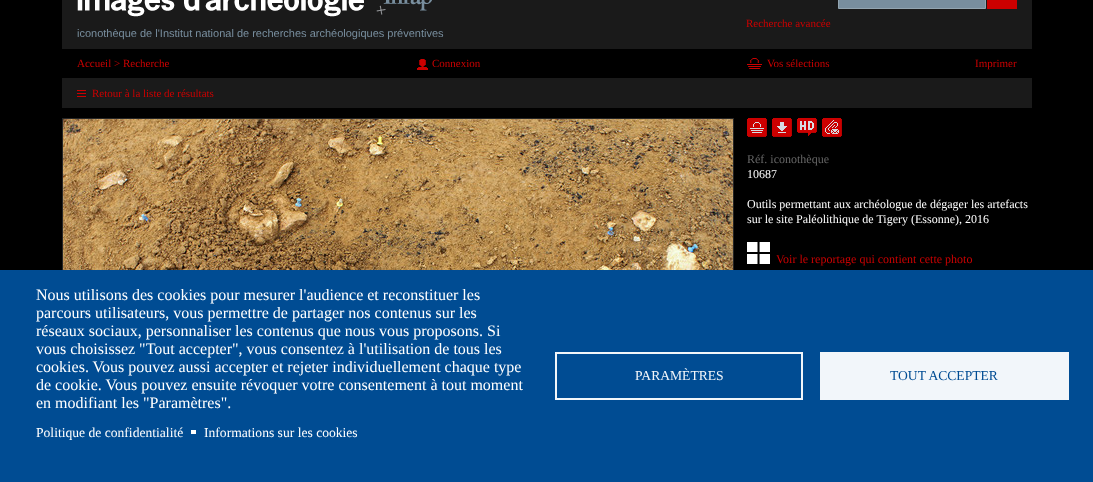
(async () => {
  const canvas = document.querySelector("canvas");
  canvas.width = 1093;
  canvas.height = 482;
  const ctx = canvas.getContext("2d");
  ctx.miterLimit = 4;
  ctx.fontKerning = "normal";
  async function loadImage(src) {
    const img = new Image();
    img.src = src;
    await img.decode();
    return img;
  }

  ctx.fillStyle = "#000000";
  ctx.fillRect(0, 0, 1093, 482);
  ctx.fillStyle = "#1a1a1a";
  ctx.fillRect(62, 0, 970, 49);
  ctx.fillStyle = "#788e9e";
  ctx.beginPath();
  ctx.rect(838.5, -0.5, 147, 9);
  ctx.fill();
  ctx.strokeStyle = "#93a5b1";
  ctx.stroke();
  ctx.fillStyle = "#cc0000";
  ctx.fillRect(987, 0, 30, 9);
  ctx.drawImage(await loadImage("img/1.png"), 77, 0, 355, 17);
  ctx.drawImage(await loadImage("img/2.png"), 417, 59, 11, 11);
  ctx.drawImage(await loadImage("img/3.png"), 747, 58, 15, 11);
  ctx.fillStyle = "#1a1a1a";
  ctx.fillRect(62, 78, 970, 30);
  ctx.drawImage(await loadImage("img/4.png"), 77, 90, 9, 7);
  ctx.strokeStyle = "#262626";
  ctx.strokeRect(62.5, 118.5, 671, 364);
  ctx.drawImage(await loadImage("img/5.png"), 63, 119, 670, 151);
  ctx.drawImage(await loadImage("img/6.png"), 747, 118, 20, 19);
  ctx.drawImage(await loadImage("img/7.png"), 772, 118, 20, 19);
  ctx.drawImage(await loadImage("img/8.png"), 797, 118, 20, 18);
  ctx.drawImage(await loadImage("img/9.png"), 822, 118, 20, 19);
  ctx.drawImage(await loadImage("img/10.png"), 747, 242, 23, 22);
  ctx.fillStyle = "#004c93";
  ctx.fillRect(0, 270, 1093, 212);
  ctx.fillStyle = "#ffffff";
  ctx.fillRect(191, 430, 5, 4);
  ctx.strokeStyle = "#f2f6fa";
  ctx.lineWidth = 2;
  ctx.strokeRect(556, 353, 246, 46);
  ctx.fillStyle = "#f2f6fa";
  ctx.fillRect(820, 352, 249, 48);
  ctx.font = "11px Liberation Serif";
  ctx.fillStyle = "#cc0000";
  ctx.fillText("Recherche avancée", 746, 27);
  ctx.font = "11px Liberation Sans";
  ctx.fillStyle = "#788e9e";
  ctx.fillText("iconothèque de l'Institut national de recherches archéologiques préventives", 77, 37);
  ctx.font = "11px Liberation Serif";
  ctx.fillStyle = "#cc0000";
  for (const [text, x, y] of [
    ["Accueil > Recherche", 77, 67],
    ["Connexion", 432, 67],
    ["Vos sélections", 767, 67],
    ["Imprimer", 975, 67],
    ["Retour à la liste de résultats", 92, 97],
  ]) {
    ctx.fillText(text, x, y);
  }
  ctx.font = "12px Liberation Serif";
  ctx.fillStyle = "#666666";
  ctx.fillText("Réf. iconothèque", 747, 163);
  ctx.fillStyle = "#ffffff";
  for (const [text, x, y] of [
    ["10687", 747, 178],
    ["Outils permettant aux archéologue de dégager les artefacts", 747, 208],
    ["sur le site Paléolithique de Tigery (Essonne), 2016", 747, 223],
  ]) {
    ctx.fillText(text, x, y);
  }
  ctx.fillStyle = "#cc0000";
  ctx.fillText("Voir le reportage qui contient cette photo", 776, 263);
  ctx.font = "16px Liberation Serif";
  ctx.fillStyle = "#ffffff";
  for (const [text, x, y] of [
    ["Nous utilisons des cookies pour mesurer l'audience et reconstituer les", 36, 300],
    ["parcours utilisateurs, vous permettre de partager nos contenus sur les", 36, 318],
    ["réseaux sociaux, personnaliser les contenus que nous vous proposons. Si", 36, 336],
    ["vous choisissez \"Tout accepter\", vous consentez à l'utilisation de tous les", 36, 354],
    ["cookies. Vous pouvez aussi accepter et rejeter individuellement chaque type", 36, 372],
    ["de cookie. Vous pouvez ensuite révoquer votre consentement à tout moment", 36, 390],
    ["en modifiant les \"Paramètres\".", 36, 408],
  ]) {
    ctx.fillText(text, x, y);
  }
  ctx.font = "13.6px Liberation Serif";
  ctx.fillText("Politique de confidentialité", 36, 437);
  ctx.fillText("Informations sur les cookies", 204, 437);
  ctx.fillStyle = "#f2f6fa";
  ctx.fillText("PARAMÈTRES", 635, 380);
  ctx.fillStyle = "#004c93";
  ctx.fillText("TOUT ACCEPTER", 890, 380);
})();
